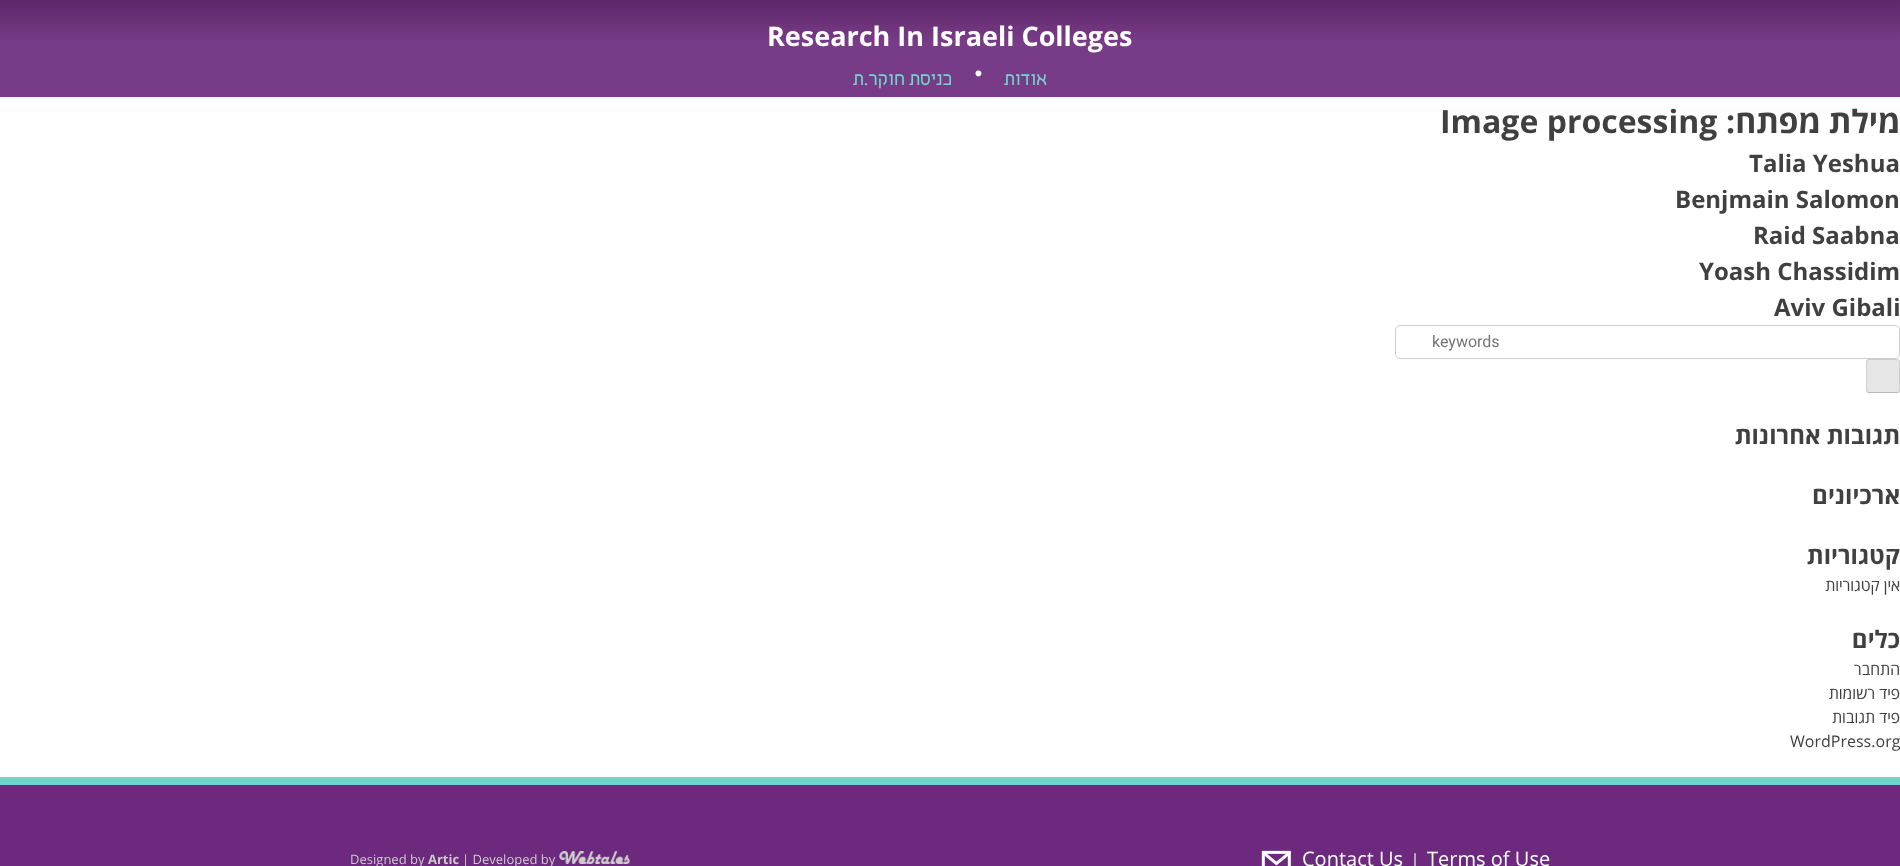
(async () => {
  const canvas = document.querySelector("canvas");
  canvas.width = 1900;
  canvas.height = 866;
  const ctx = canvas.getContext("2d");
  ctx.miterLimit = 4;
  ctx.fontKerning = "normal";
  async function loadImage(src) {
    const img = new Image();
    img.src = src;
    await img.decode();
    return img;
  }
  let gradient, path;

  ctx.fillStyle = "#ffffff";
  ctx.fillRect(0, 0, 1900, 866);
  gradient = ctx.createLinearGradient(950, -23, 950, 97);
  gradient.addColorStop(0, "#72d5c9");
  gradient.addColorStop(0.06, "#72d5c9");
  gradient.addColorStop(0.06, "#511f5a");
  gradient.addColorStop(0.53, "#783b87");
  gradient.addColorStop(1, "#783b87");
  ctx.fillStyle = gradient;
  ctx.fillRect(0, 0, 1900, 97);
  ctx.beginPath();
  ctx.roundRect(1395.5, 325.5, 504, 33, 4.5);
  ctx.strokeStyle = "#cccccc";
  ctx.stroke();
  ctx.fillStyle = "#e6e6e6";
  ctx.beginPath();
  ctx.roundRect(1866, 359, 34, 34, 3);
  ctx.fill();
  path = new Path2D("M1899 392C1898.5 392 1897.5 392.5 1897 392.5H1869C1868.5 392.5 1867.5 392 1867 392");
  ctx.strokeStyle = "#bbbbbb";
  ctx.stroke(path);
  path = new Path2D("M1867 392C1866 390.5 1866.5 386.5 1866.5 385.5V366.5C1866.5 359 1866 359.5 1873.5 359.5H1892.5C1900 359.5 1899.5 359 1899.5 366.5V385.5C1899.5 386.5 1900 390.5 1899 392");
  ctx.strokeStyle = "#cccccc";
  ctx.stroke(path);
  ctx.fillStyle = "#6c297d";
  ctx.fillRect(0, 785, 1900, 81);
  ctx.fillStyle = "#72d5c9";
  ctx.fillRect(0, 777, 1900, 8);
  ctx.drawImage(await loadImage("img/1.png"), 559, 851, 71, 13);
  ctx.drawImage(await loadImage("img/2.png"), 1261, 850, 30, 16);
  ctx.font = "bold 27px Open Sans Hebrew";
  ctx.fillStyle = "#ffffff";
  ctx.fillText("Research In Israeli Colleges", 767, 46);
  ctx.direction = "rtl";
  ctx.font = "20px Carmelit";
  ctx.fillStyle = "#72d5c9";
  ctx.fillText("כניסת חוקר.ת", 952, 85);
  ctx.direction = "ltr";
  ctx.font = "40px Carmelit";
  ctx.fillStyle = "#ffffff";
  ctx.fillText("•", 973, 85);
  ctx.direction = "rtl";
  ctx.font = "20px Carmelit";
  ctx.fillStyle = "#72d5c9";
  ctx.fillText("אודות", 1047, 85);
  ctx.direction = "ltr";
  ctx.font = "bold 32px Open Sans Hebrew";
  ctx.fillStyle = "#404040";
  ctx.fillText("Image processing", 1440, 133);
  ctx.direction = "rtl";
  ctx.fillText("מילת מפתח:", 1900, 133);
  ctx.direction = "ltr";
  ctx.font = "bold 24px Open Sans Hebrew";
  for (const [text, x, y] of [
    ["Talia Yeshua", 1749, 172],
    ["Benjmain Salomon", 1675, 208],
    ["Raid Saabna", 1753, 244],
    ["Yoash Chassidim", 1699, 280],
    ["Aviv Gibali", 1774, 316],
  ]) {
    ctx.fillText(text, x, y);
  }
  ctx.font = "16px Roboto";
  ctx.fillStyle = "#757575";
  ctx.fillText("keywords", 1432, 347);
  ctx.direction = "rtl";
  ctx.font = "bold 24px Open Sans Hebrew";
  ctx.fillStyle = "#404040";
  for (const [text, x, y] of [
    ["תגובות אחרונות", 1900, 444],
    ["ארכיונים", 1900, 504],
    ["קטגוריות", 1900, 564],
  ]) {
    ctx.fillText(text, x, y);
  }
  ctx.font = "16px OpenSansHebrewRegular";
  ctx.fillText("אין קטגוריות", 1900, 591);
  ctx.font = "bold 24px Open Sans Hebrew";
  ctx.fillText("כלים", 1900, 648);
  ctx.font = "16px OpenSansHebrewRegular";
  for (const [text, x, y] of [
    ["התחבר", 1900, 675],
    ["פיד רשומות", 1900, 699],
    ["פיד תגובות", 1900, 723],
  ]) {
    ctx.fillText(text, x, y);
  }
  ctx.direction = "ltr";
  ctx.fillText("WordPress.org", 1790, 747);
  ctx.font = "13px OpenSansHebrewRegular";
  ctx.fillStyle = "#cccccc";
  ctx.fillText("Designed by", 350, 864);
  ctx.font = "bold 13px Open Sans Hebrew";
  ctx.fillText("Artic", 428, 864);
  ctx.font = "13px OpenSansHebrewRegular";
  ctx.fillText("| Developed by", 462, 864);
  ctx.font = "20px OpenSansHebrewRegular";
  ctx.fillStyle = "#ffffff";
  ctx.fillText("Contact Us", 1302, 866);
  ctx.font = "20px Liberation Serif";
  ctx.fillText("|", 1413, 867);
  ctx.font = "20px OpenSansHebrewRegular";
  ctx.fillText("Terms of Use", 1427, 866);
})();
